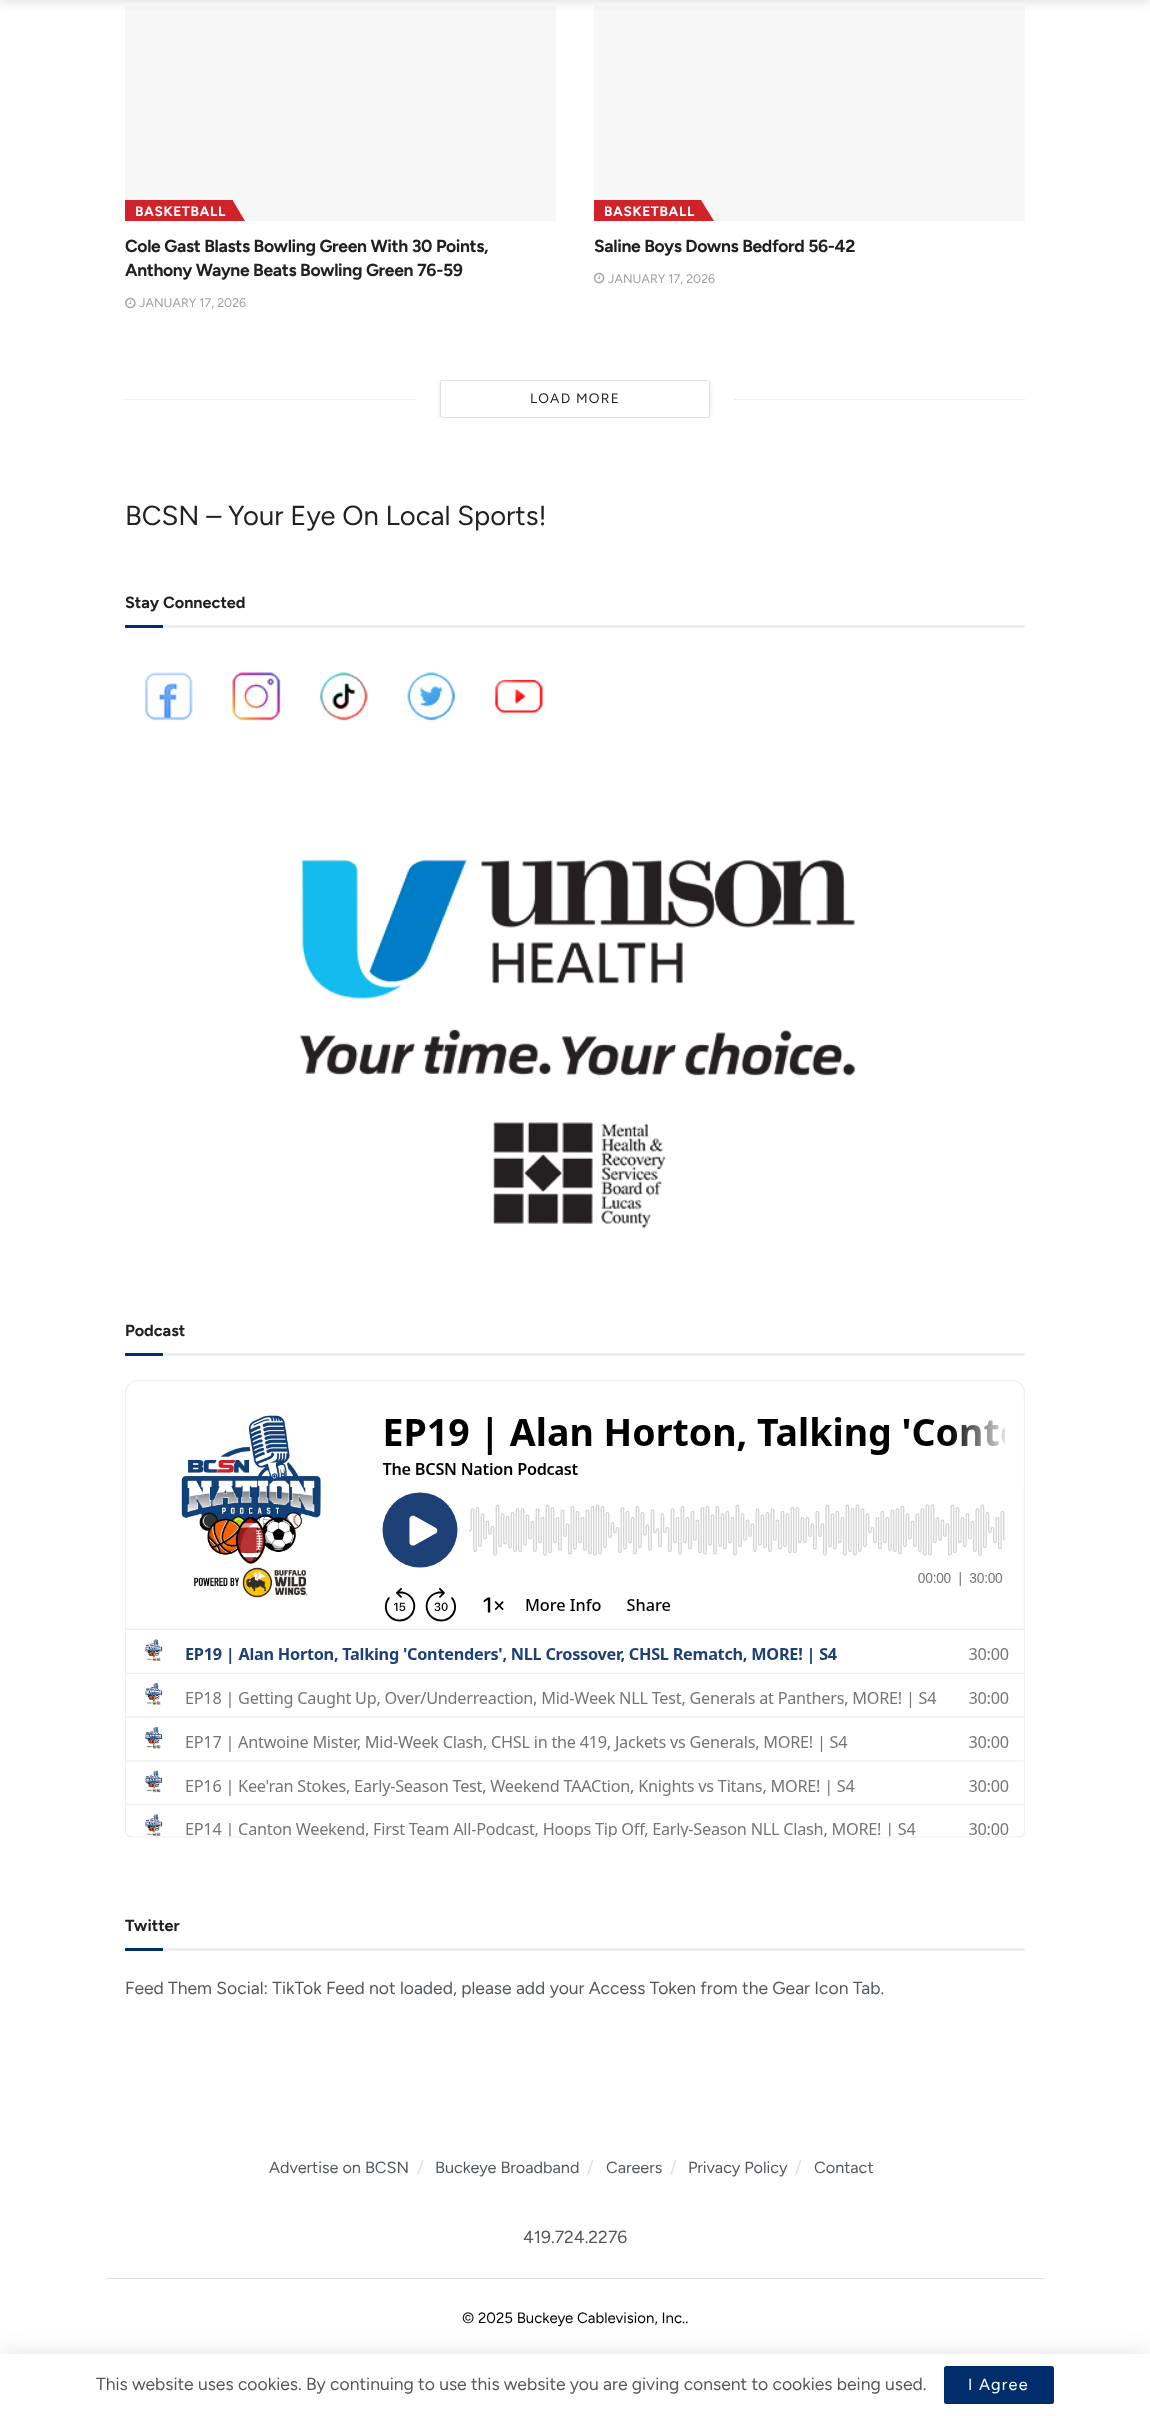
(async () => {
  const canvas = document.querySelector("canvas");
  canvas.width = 1150;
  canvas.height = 2416;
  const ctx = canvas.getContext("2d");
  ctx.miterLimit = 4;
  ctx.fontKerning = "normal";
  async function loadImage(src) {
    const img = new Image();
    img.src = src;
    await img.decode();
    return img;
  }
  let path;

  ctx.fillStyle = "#ffffff";
  ctx.fillRect(0, 0, 1150, 2416);
  ctx.fillStyle = "#f7f7f7";
  ctx.fillRect(125, 6, 431, 215);
  ctx.fillRect(594, 6, 431, 215);
  ctx.fillStyle = "rgba(0, 0, 0, 0.1)";
  ctx.filter = "blur(4px)";
  ctx.beginPath();
  ctx.rect(0, -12, 1150, 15);
  ctx.fill();
  ctx.filter = "none";
  ctx.fillStyle = "#d12229";
  ctx.fillRect(125, 200, 108, 21);
  path = new Path2D("M245 221H232.5V200Z");
  ctx.fill(path);
  ctx.drawImage(await loadImage("img/1.png"), 125, 297, 11, 12);
  ctx.fillRect(594, 200, 107, 21);
  path = new Path2D("M714 221H701V200Z");
  ctx.fill(path);
  ctx.drawImage(await loadImage("img/2.png"), 593, 272, 12, 12);
  ctx.save();
  ctx.beginPath();
  ctx.rect(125, 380, 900, 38);
  ctx.clip();
  ctx.fillStyle = "rgba(0, 0, 0, 0.1)";
  ctx.filter = "blur(2px)";
  ctx.beginPath();
  ctx.roundRect(440, 381, 270, 38, 2.5);
  ctx.fill();
  ctx.filter = "none";
  ctx.restore();
  ctx.fillStyle = "#ffffff";
  ctx.beginPath();
  ctx.roundRect(440.5, 380.5, 269, 37, 2);
  ctx.fill();
  ctx.strokeStyle = "#e0e0e0";
  ctx.stroke();
  for (const [x, y, w, h, color] of [
    [125, 399, 291, 1, "#eeeeee"],
    [734, 399, 291, 1, "#eeeeee"],
    [163, 625, 862, 3, "#eeeeee"],
    [125, 625, 38, 3, "#002e6c"],
  ]) {
    ctx.fillStyle = color;
    ctx.fillRect(x, y, w, h);
  }
  ctx.drawImage(await loadImage("img/3.png"), 145, 672, 48, 49);
  ctx.drawImage(await loadImage("img/4.png"), 232, 672, 49, 49);
  ctx.drawImage(await loadImage("img/5.png"), 319, 672, 49, 49);
  ctx.drawImage(await loadImage("img/6.png"), 407, 672, 49, 49);
  ctx.drawImage(await loadImage("img/7.png"), 494, 679, 49, 34);
  ctx.drawImage(await loadImage("img/8.png"), 299, 859, 557, 369);
  ctx.fillStyle = "#eeeeee";
  ctx.fillRect(163, 1353, 862, 3);
  ctx.fillStyle = "#002e6c";
  ctx.fillRect(125, 1353, 38, 3);
  ctx.drawImage(await loadImage("img/9.png"), 125, 1380, 900, 458);
  for (const [x, y, w, h, color] of [
    [163, 1948, 862, 3, "#eeeeee"],
    [125, 1948, 38, 3, "#002e6c"],
    [106, 2278, 938, 1, "#e0e0e0"],
  ]) {
    ctx.fillStyle = color;
    ctx.fillRect(x, y, w, h);
  }
  ctx.fillStyle = "rgba(0, 0, 0, 0.15)";
  ctx.filter = "blur(12.5px)";
  ctx.beginPath();
  ctx.rect(0, 2356, 1150, 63);
  ctx.fill();
  ctx.filter = "none";
  ctx.fillStyle = "#ffffff";
  ctx.fillRect(0, 2354, 1150, 62);
  ctx.fillStyle = "#002e6c";
  ctx.beginPath();
  ctx.roundRect(944, 2366, 110, 38, 2.5);
  ctx.fill();
  ctx.letterSpacing = "0.6px";
  ctx.font = "bold 13.75px Figtree";
  ctx.fillStyle = "#ffffff";
  ctx.fillText("BASKETBALL", 135, 216);
  ctx.letterSpacing = "-0.35px";
  ctx.font = "bold 17.5px Figtree";
  ctx.fillStyle = "#212121";
  ctx.fillText("Cole Gast Blasts Bowling Green With 30 Points,", 125, 252);
  ctx.fillText("Anthony Wayne Beats Bowling Green 76-59", 125, 276);
  ctx.letterSpacing = "0px";
  ctx.font = "12.5px Figtree";
  ctx.fillStyle = "#a0a0a0";
  ctx.fillText("JANUARY 17, 2026", 139, 307);
  ctx.letterSpacing = "0.6px";
  ctx.font = "bold 13.75px Figtree";
  ctx.fillStyle = "#ffffff";
  ctx.fillText("BASKETBALL", 604, 216);
  ctx.letterSpacing = "-0.35px";
  ctx.font = "bold 17.5px Figtree";
  ctx.fillStyle = "#212121";
  ctx.fillText("Saline Boys Downs Bedford 56-42", 594, 252);
  ctx.letterSpacing = "0px";
  ctx.font = "12.5px Figtree";
  ctx.fillStyle = "#a0a0a0";
  ctx.fillText("JANUARY 17, 2026", 608, 283);
  ctx.letterSpacing = "1.25px";
  ctx.font = "13.75px Figtree";
  ctx.fillStyle = "#212121";
  ctx.fillText("LOAD MORE", 530, 403);
  ctx.letterSpacing = "0px";
  ctx.font = "27.4px Figtree";
  ctx.fillText("BCSN – Your Eye On Local Sports!", 125, 525);
  ctx.font = "bold 16.25px Figtree";
  for (const [text, x, y] of [
    ["Stay Connected", 125, 608],
    ["Podcast", 125, 1336],
    ["Twitter", 125, 1931],
  ]) {
    ctx.fillText(text, x, y);
  }
  ctx.font = "17.5px Figtree";
  ctx.fillStyle = "#53585c";
  ctx.fillText("Feed Them Social: TikTok Feed not loaded, please add your Access Token from the Gear Icon Tab.", 125, 1994);
  ctx.font = "16.25px Figtree";
  ctx.fillText("Advertise on BCSN", 269, 2173);
  ctx.font = "17.5px Figtree";
  ctx.fillStyle = "#e0e0e0";
  ctx.fillText("/", 417, 2173);
  ctx.font = "16.25px Figtree";
  ctx.fillStyle = "#53585c";
  ctx.fillText("Buckeye Broadband", 435, 2173);
  ctx.font = "17.5px Figtree";
  ctx.fillStyle = "#e0e0e0";
  ctx.fillText("/", 587, 2173);
  ctx.font = "16.25px Figtree";
  ctx.fillStyle = "#53585c";
  ctx.fillText("Careers", 606, 2173);
  ctx.font = "17.5px Figtree";
  ctx.fillStyle = "#e0e0e0";
  ctx.fillText("/", 670, 2173);
  ctx.font = "16.25px Figtree";
  ctx.fillStyle = "#53585c";
  ctx.fillText("Privacy Policy", 688, 2173);
  ctx.font = "17.5px Figtree";
  ctx.fillStyle = "#e0e0e0";
  ctx.fillText("/", 795, 2173);
  ctx.font = "16.25px Figtree";
  ctx.fillStyle = "#53585c";
  ctx.fillText("Contact", 814, 2173);
  ctx.font = "17.5px Figtree";
  ctx.fillText("419.724.2276", 523, 2243);
  ctx.font = "15px Figtree";
  ctx.fillStyle = "#000000";
  ctx.fillText("© 2025 Buckeye Cablevision, Inc..", 462, 2323);
  ctx.font = "17.5px Figtree";
  ctx.fillStyle = "#53585c";
  ctx.fillText("This website uses cookies. By continuing to use this website you are giving consent to cookies being used.", 96, 2390);
  ctx.letterSpacing = "1.25px";
  ctx.font = "16.25px Figtree";
  ctx.fillStyle = "#ffffff";
  ctx.fillText("I Agree", 968, 2390);
})();
